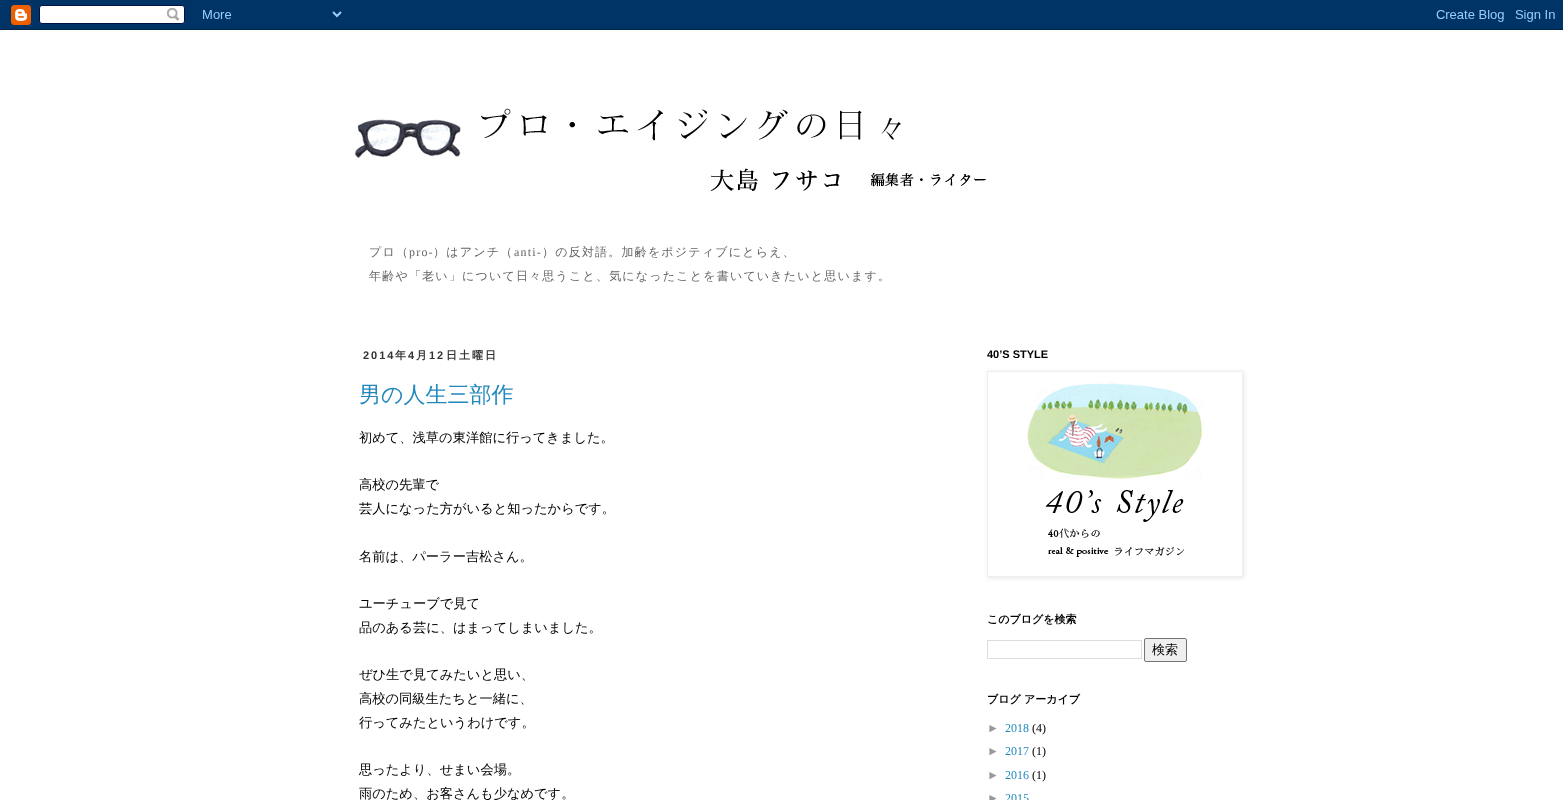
(async () => {
  const canvas = document.querySelector("canvas");
  canvas.width = 1563;
  canvas.height = 800;
  const ctx = canvas.getContext("2d");
  ctx.miterLimit = 4;
  ctx.fontKerning = "normal";
  async function loadImage(src) {
    const img = new Image();
    img.src = src;
    await img.decode();
    return img;
  }
  let path;

  ctx.fillStyle = "#ffffff";
  ctx.fillRect(0, 0, 1563, 800);
  ctx.drawImage(await loadImage("img/1.png"), 0, 0, 1563, 30);
  ctx.drawImage(await loadImage("img/2.png"), 354, 108, 632, 88);
  ctx.save();
  path = new Path2D("M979 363H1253V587H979ZM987 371H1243V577H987Z");
  ctx.clip(path, "evenodd");
  ctx.fillStyle = "rgba(0, 0, 0, 0.1)";
  ctx.filter = "blur(2.5px)";
  ctx.beginPath();
  ctx.rect(988, 372, 256, 206);
  ctx.fill();
  ctx.filter = "none";
  ctx.restore();
  ctx.strokeStyle = "#eeeeee";
  ctx.strokeRect(987.5, 371.5, 255, 205);
  ctx.drawImage(await loadImage("img/3.png"), 1027, 382, 176, 175);
  ctx.strokeStyle = "#dddddd";
  ctx.strokeRect(987.5, 640.5, 154, 18);
  ctx.fillStyle = "#efefef";
  ctx.beginPath();
  ctx.roundRect(1144.5, 638.5, 42, 23, 1.5);
  ctx.fill();
  ctx.strokeStyle = "#767676";
  ctx.stroke();
  ctx.letterSpacing = "1.2px";
  ctx.font = "500 12px WenQuanYi Zen Hei";
  ctx.fillStyle = "#666666";
  ctx.fillText("プロ（", 369, 256);
  ctx.font = "12px Liberation Serif";
  ctx.fillText("pro-", 409, 256);
  ctx.font = "500 12px WenQuanYi Zen Hei";
  ctx.fillText("）はアンチ（", 433, 256);
  ctx.font = "12px Liberation Serif";
  ctx.fillText("anti-", 514, 256);
  ctx.font = "500 12px WenQuanYi Zen Hei";
  ctx.fillText("）の反対語。加齢をポジティブにとらえ、", 542, 256);
  ctx.fillText("年齢や「老い」について日々思うこと、気になったことを書いていきたいと思います。", 369, 280);
  ctx.letterSpacing = "2px";
  ctx.font = "bold 11px Liberation Sans";
  ctx.fillStyle = "#333333";
  ctx.fillText("2014", 363, 359);
  ctx.font = "bold 11px WenQuanYi Zen Hei";
  ctx.fillText("年", 395, 359);
  ctx.font = "bold 11px Liberation Sans";
  ctx.fillText("4", 408, 359);
  ctx.font = "bold 11px WenQuanYi Zen Hei";
  ctx.fillText("月", 416, 359);
  ctx.font = "bold 11px Liberation Sans";
  ctx.fillText("12", 429, 359);
  ctx.font = "bold 11px WenQuanYi Zen Hei";
  ctx.fillText("日土曜日", 446, 359);
  ctx.letterSpacing = "0px";
  ctx.font = "500 22px WenQuanYi Zen Hei";
  ctx.fillStyle = "#2288bb";
  ctx.fillText("男の人生三部作", 359, 402);
  ctx.font = "500 13.25px WenQuanYi Zen Hei";
  ctx.fillStyle = "#000000";
  for (const [text, x, y] of [
    ["初めて、浅草の東洋館に行ってきました。", 359, 442],
    ["高校の先輩で", 359, 489],
    ["芸人になった方がいると知ったからです。", 359, 513],
    ["名前は、パーラー吉松さん。", 359, 561],
    ["ユーチューブで見て", 359, 608],
    ["品のある芸に、はまってしまいました。", 359, 632],
    ["ぜひ生で見てみたいと思い、", 359, 679],
    ["高校の同級生たちと一緒に、", 359, 703],
    ["行ってみたというわけです。", 359, 727],
    ["思ったより、せまい会場。", 359, 774],
    ["雨のため、お客さんも少なめです。", 359, 798],
  ]) {
    ctx.fillText(text, x, y);
  }
  ctx.font = "bold 11px Liberation Sans";
  ctx.fillText("40’S STYLE", 987, 358);
  ctx.font = "bold 11px WenQuanYi Zen Hei";
  ctx.fillText("このブログを検索", 987, 623);
  ctx.font = "500 13px WenQuanYi Zen Hei";
  ctx.fillText("検索", 1152, 654);
  ctx.font = "bold 11px WenQuanYi Zen Hei";
  ctx.fillText("ブログ アーカイブ", 987, 703);
  ctx.font = "12px Liberation Sans";
  ctx.fillStyle = "#999999";
  ctx.fillText("►", 987, 732);
  ctx.font = "12px Liberation Serif";
  ctx.fillStyle = "#2288bb";
  ctx.fillText("2018", 1005, 732);
  ctx.fillStyle = "#000000";
  ctx.fillText("(4)", 1032, 732);
  ctx.font = "12px Liberation Sans";
  ctx.fillStyle = "#999999";
  ctx.fillText("►", 987, 755);
  ctx.font = "12px Liberation Serif";
  ctx.fillStyle = "#2288bb";
  ctx.fillText("2017", 1005, 755);
  ctx.fillStyle = "#000000";
  ctx.fillText("(1)", 1032, 755);
  ctx.font = "12px Liberation Sans";
  ctx.fillStyle = "#999999";
  ctx.fillText("►", 987, 779);
  ctx.font = "12px Liberation Serif";
  ctx.fillStyle = "#2288bb";
  ctx.fillText("2016", 1005, 779);
  ctx.fillStyle = "#000000";
  ctx.fillText("(1)", 1032, 779);
  ctx.font = "12px Liberation Sans";
  ctx.fillStyle = "#999999";
  ctx.fillText("►", 987, 802);
  ctx.font = "12px Liberation Serif";
  ctx.fillStyle = "#2288bb";
  ctx.fillText("2015", 1005, 802);
})();
